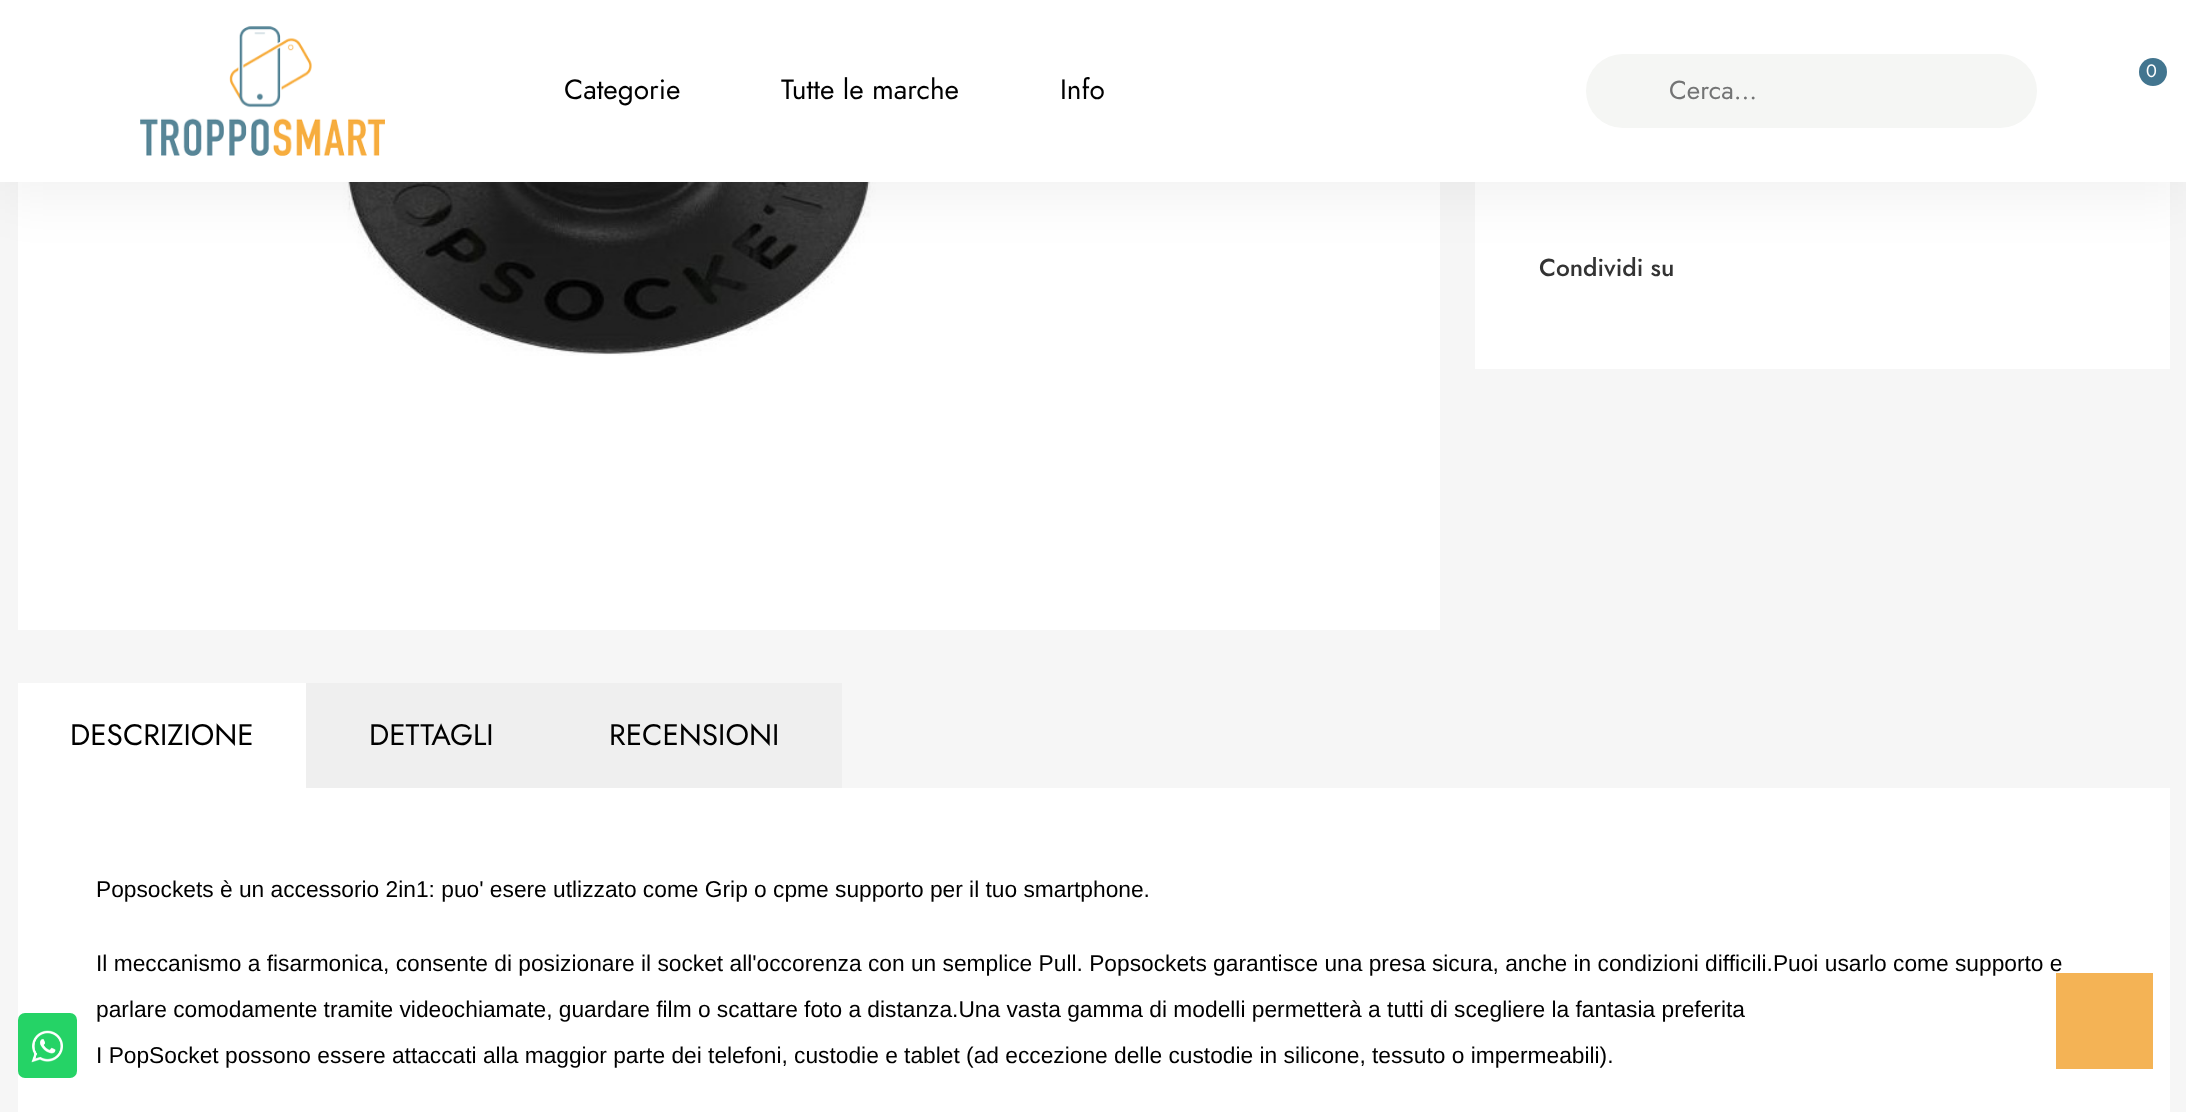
(async () => {
  const canvas = document.querySelector("canvas");
  canvas.width = 2186;
  canvas.height = 1112;
  const ctx = canvas.getContext("2d");
  ctx.miterLimit = 4;
  ctx.fontKerning = "normal";
  async function loadImage(src) {
    const img = new Image();
    img.src = src;
    await img.decode();
    return img;
  }

  ctx.fillStyle = "#f6f6f6";
  ctx.fillRect(0, 0, 2186, 1112);
  ctx.fillStyle = "#ffffff";
  ctx.fillRect(18, 788, 2152, 324);
  ctx.fillStyle = "#25d366";
  ctx.beginPath();
  ctx.roundRect(18, 1013, 59, 65, 7);
  ctx.fill();
  ctx.drawImage(await loadImage("img/1.png"), 31, 1030, 32, 33);
  ctx.fillStyle = "#ffffff";
  ctx.fillRect(18, 182, 1422, 448);
  ctx.drawImage(await loadImage("img/3.png"), 323, 182, 573, 174);
  ctx.fillRect(1475, 182, 695, 187);
  ctx.fillStyle = "rgba(0, 0, 0, 0.05)";
  ctx.filter = "blur(26px)";
  ctx.beginPath();
  ctx.rect(0, 18, 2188, 182);
  ctx.fill();
  ctx.filter = "none";
  ctx.fillStyle = "#ffffff";
  ctx.fillRect(0, 0, 2186, 182);
  ctx.drawImage(await loadImage("img/2.png"), 140, 26, 245, 130);
  ctx.fillStyle = "#42758f";
  ctx.beginPath();
  ctx.arc(2153, 72, 14, 0, Math.PI * 2);
  ctx.fill();
  ctx.fillStyle = "#f5f6f4";
  ctx.beginPath();
  ctx.roundRect(1586, 54, 451, 74, 37);
  ctx.fill();
  ctx.fillStyle = "#efefef";
  ctx.fillRect(306, 683, 536, 105);
  ctx.fillStyle = "#ffffff";
  ctx.fillRect(18, 683, 288, 105);
  ctx.letterSpacing = "3px";
  ctx.font = "18px Jost";
  ctx.fillText("0", 2146, 77);
  ctx.letterSpacing = "0px";
  ctx.font = "28px Jost";
  ctx.fillStyle = "#000000";
  for (const [text, x, y] of [
    ["Categorie", 564, 99],
    ["Tutte le marche", 781, 99],
    ["Info", 1060, 99],
  ]) {
    ctx.fillText(text, x, y);
  }
  ctx.font = "26px Jost";
  ctx.fillStyle = "#737474";
  ctx.fillText("Cerca...", 1669, 99);
  ctx.font = "500 24.5px Jost";
  ctx.fillStyle = "#333333";
  ctx.fillText("Condividi su", 1539, 276);
  ctx.font = "29.75px Jost";
  ctx.fillStyle = "#000000";
  for (const [text, x, y] of [
    ["DESCRIZIONE", 70, 745],
    ["DETTAGLI", 369, 745],
    ["RECENSIONI", 609, 745],
  ]) {
    ctx.fillText(text, x, y);
  }
  ctx.font = "22.75px Liberation Sans";
  for (const [text, x, y] of [
    ["Popsockets è un accessorio 2in1: puo' esere utlizzato come Grip o cpme supporto per il tuo smartphone.", 96, 897],
    ["Il meccanismo a fisarmonica, consente di posizionare il socket all'occorenza con un semplice Pull. Popsockets garantisce una presa sicura, anche in condizioni difficili.Puoi usarlo come supporto e", 96, 971],
    ["parlare comodamente tramite videochiamate, guardare film o scattare foto a distanza.Una vasta gamma di modelli permetterà a tutti di scegliere la fantasia preferita", 96, 1017],
    ["I PopSocket possono essere attaccati alla maggior parte dei telefoni, custodie e tablet (ad eccezione delle custodie in silicone, tessuto o impermeabili).", 96, 1063],
  ]) {
    ctx.fillText(text, x, y);
  }
  ctx.fillStyle = "#f4b355";
  ctx.fillRect(2056, 973, 97, 96);
})();
